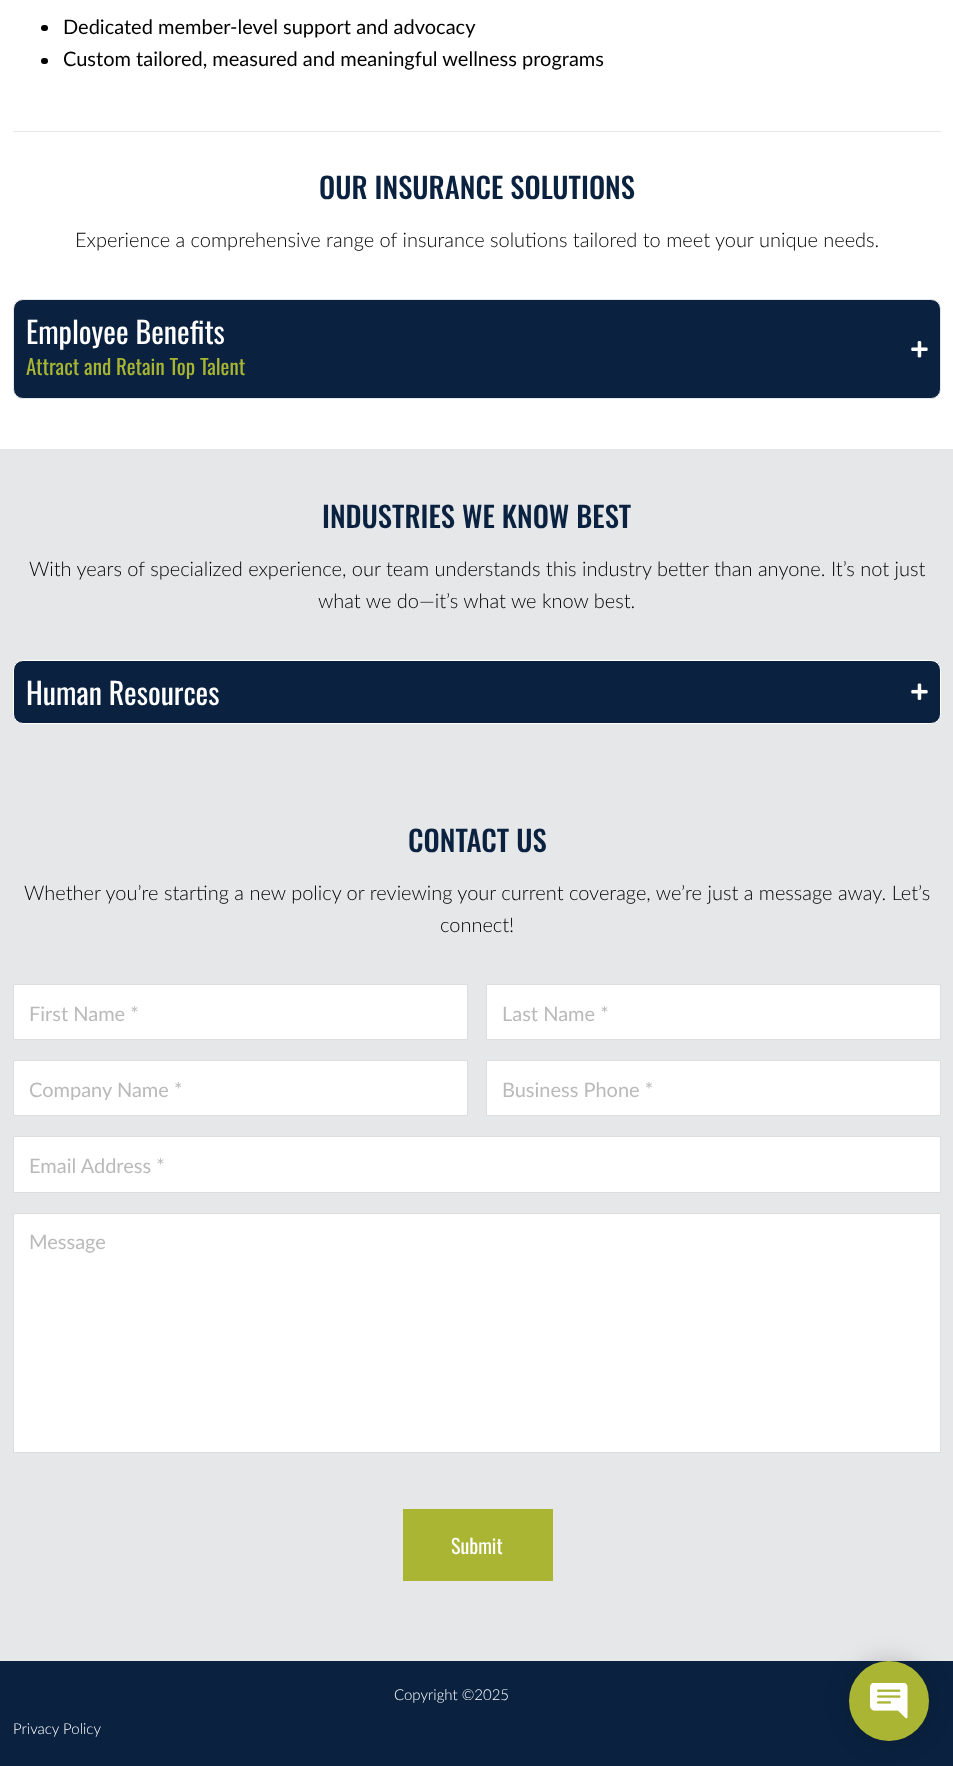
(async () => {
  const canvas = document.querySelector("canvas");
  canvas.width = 953;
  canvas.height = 1766;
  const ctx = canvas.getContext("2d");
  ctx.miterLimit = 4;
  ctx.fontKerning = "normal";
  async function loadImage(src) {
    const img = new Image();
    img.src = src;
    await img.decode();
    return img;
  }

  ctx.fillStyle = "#ffffff";
  ctx.fillRect(0, 0, 953, 1766);
  ctx.fillStyle = "#000000";
  ctx.beginPath();
  ctx.roundRect(41, 25, 7, 6, 3);
  ctx.fill();
  ctx.beginPath();
  ctx.roundRect(41, 58, 7, 6, 3);
  ctx.fill();
  ctx.fillStyle = "#e6e7e9";
  ctx.fillRect(13, 131, 928, 1);
  ctx.fillStyle = "#0a2240";
  ctx.beginPath();
  ctx.roundRect(13.5, 299.5, 927, 99, 9.5);
  ctx.fill();
  ctx.strokeStyle = "#e6e7e9";
  ctx.stroke();
  ctx.drawImage(await loadImage("img/1.png"), 911, 341, 17, 17);
  ctx.fillStyle = "#e6e7e9";
  ctx.fillRect(0, 449, 953, 1212);
  ctx.fillStyle = "#0a2240";
  ctx.beginPath();
  ctx.roundRect(13.5, 660.5, 927, 63, 9.5);
  ctx.fill();
  ctx.strokeStyle = "#ffffff";
  ctx.stroke();
  ctx.drawImage(await loadImage("img/2.png"), 911, 683, 17, 17);
  ctx.fillStyle = "#ffffff";
  ctx.beginPath();
  ctx.rect(13.5, 984.5, 454, 55);
  ctx.fill();
  ctx.strokeStyle = "#dddddd";
  ctx.stroke();
  ctx.beginPath();
  ctx.rect(486.5, 984.5, 454, 55);
  ctx.fill();
  ctx.stroke();
  ctx.beginPath();
  ctx.rect(13.5, 1060.5, 454, 55);
  ctx.fill();
  ctx.stroke();
  ctx.beginPath();
  ctx.rect(486.5, 1060.5, 454, 55);
  ctx.fill();
  ctx.stroke();
  ctx.beginPath();
  ctx.rect(13.5, 1136.5, 927, 56);
  ctx.fill();
  ctx.stroke();
  ctx.beginPath();
  ctx.rect(13.5, 1213.5, 927, 239);
  ctx.fill();
  ctx.stroke();
  ctx.fillStyle = "#a9b533";
  ctx.fillRect(403, 1509, 150, 72);
  ctx.fillStyle = "#0a2240";
  ctx.fillRect(0, 1661, 953, 105);
  ctx.fillStyle = "rgba(0, 0, 0, 0.2)";
  ctx.filter = "blur(12.5px)";
  ctx.beginPath();
  ctx.roundRect(849, 1661, 80, 80, 40);
  ctx.fill();
  ctx.filter = "none";
  ctx.fillStyle = "#a9b533";
  ctx.beginPath();
  ctx.arc(889, 1701, 38.5, 0, Math.PI * 2);
  ctx.fill();
  ctx.strokeStyle = "#a9b533";
  ctx.lineWidth = 3;
  ctx.stroke();
  ctx.drawImage(await loadImage("img/3.png"), 870, 1683, 38, 36);
  ctx.font = "20px Lato";
  ctx.fillStyle = "#000000";
  ctx.fillText("Dedicated member-level support and advocacy", 63, 34);
  ctx.fillText("Custom tailored, measured and meaningful wellness programs", 63, 66);
  ctx.font = "500 28.75px Oswald";
  ctx.fillStyle = "#0a2240";
  ctx.fillText("OUR INSURANCE SOLUTIONS", 319, 199);
  ctx.font = "300 20px Lato";
  ctx.fillStyle = "#000000";
  ctx.fillText("Experience a comprehensive range of insurance solutions tailored to meet your unique needs.", 75, 247);
  ctx.font = "30px Oswald";
  ctx.fillStyle = "#ffffff";
  ctx.fillText("Employee Benefits", 26, 344);
  ctx.font = "21px Oswald";
  ctx.fillStyle = "#a8b533";
  ctx.fillText("Attract and Retain Top Talent", 26, 375);
  ctx.font = "500 28.75px Oswald";
  ctx.fillStyle = "#0a2240";
  ctx.fillText("INDUSTRIES WE KNOW BEST", 322, 528);
  ctx.font = "300 20px Lato";
  ctx.fillStyle = "#000000";
  ctx.fillText("With years of specialized experience, our team understands this industry better than anyone. It’s not just", 29, 576);
  ctx.fillText("what we do—it’s what we know best.", 318, 608);
  ctx.font = "30px Oswald";
  ctx.fillStyle = "#ffffff";
  ctx.fillText("Human Resources", 26, 705);
  ctx.font = "500 28.75px Oswald";
  ctx.fillStyle = "#0a2240";
  ctx.fillText("CONTACT US", 408, 852);
  ctx.font = "300 20px Lato";
  ctx.fillStyle = "#000000";
  ctx.fillText("Whether you’re starting a new policy or reviewing your current coverage, we’re just a message away. Let’s", 24, 900);
  ctx.fillText("connect!", 440, 932);
  ctx.font = "20px Lato";
  ctx.fillStyle = "#bababa";
  ctx.fillText("First Name *", 29, 1021);
  ctx.fillText("Last Name *", 502, 1021);
  ctx.save();
  ctx.beginPath();
  ctx.rect(29, 1076, 422, 24);
  ctx.clip();
  ctx.fillText("Company Name *", 29, 1097);
  ctx.restore();
  for (const [text, x, y] of [
    ["Business Phone *", 502, 1097],
    ["Email Address *", 29, 1173],
    ["Message", 29, 1249],
  ]) {
    ctx.fillText(text, x, y);
  }
  ctx.font = "20px Oswald";
  ctx.fillStyle = "#ffffff";
  ctx.fillText("Submit", 451, 1554);
  ctx.font = "300 15px Lato";
  ctx.fillText("Copyright ©2025", 394, 1700);
  ctx.fillText("Privacy Policy", 13, 1734);
})();
